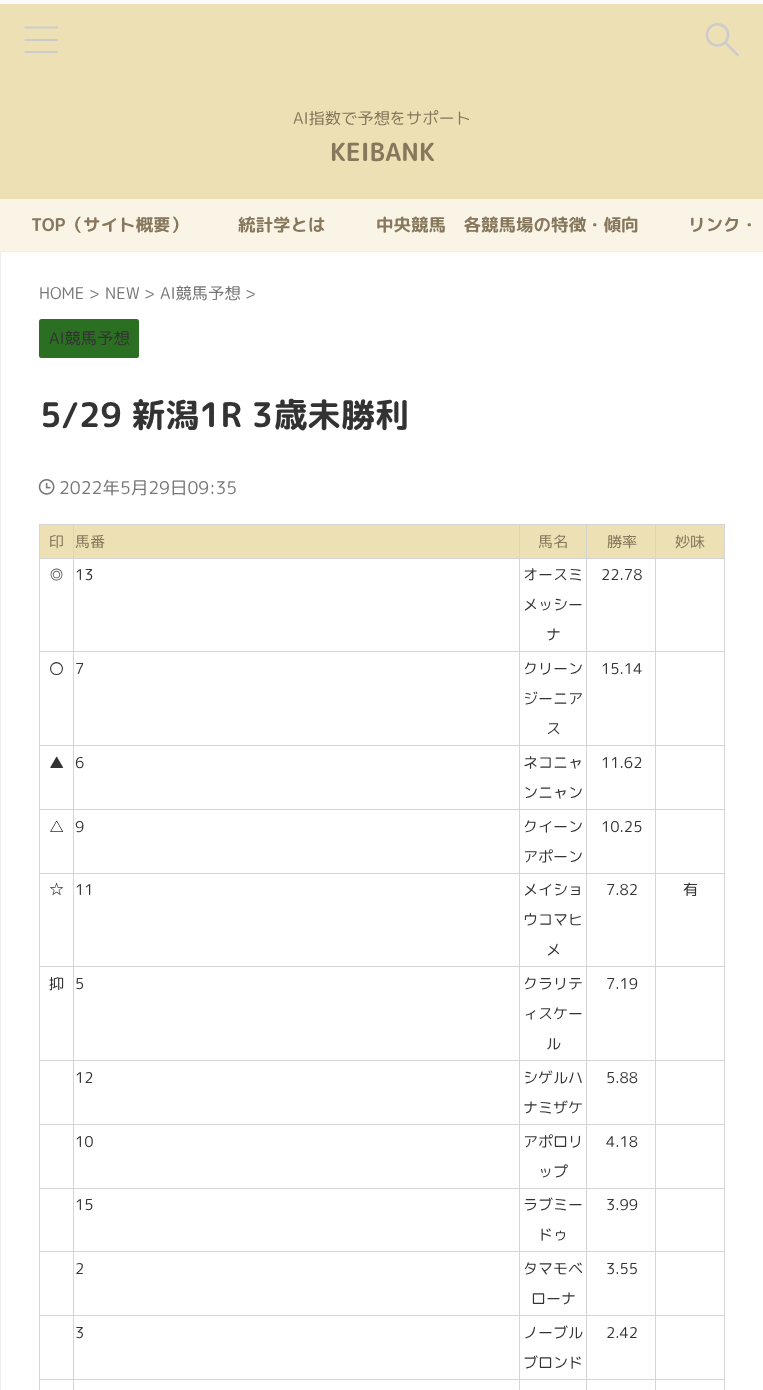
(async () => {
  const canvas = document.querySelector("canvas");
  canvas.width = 763;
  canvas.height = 1390;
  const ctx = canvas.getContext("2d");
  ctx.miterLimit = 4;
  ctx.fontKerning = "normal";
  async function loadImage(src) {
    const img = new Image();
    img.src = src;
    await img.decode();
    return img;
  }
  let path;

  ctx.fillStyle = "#fafafa";
  ctx.fillRect(0, 0, 763, 1390);
  ctx.fillStyle = "#eee0b5";
  ctx.fillRect(0, 4, 763, 195);
  ctx.fillStyle = "#cccccc";
  path = new Path2D("M24.5 26.5H58V28.5H24.5ZM24.5 39H58V41H24.5ZM24.5 51H58V53H24.5Z");
  ctx.fill(path);
  ctx.drawImage(await loadImage("img/1.png"), 705, 23, 34, 34);
  ctx.fillStyle = "#f9f4e5";
  ctx.fillRect(0, 199, 763, 52);
  ctx.fillStyle = "#ffffff";
  ctx.beginPath();
  ctx.rect(0.5, 251.5, 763, 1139);
  ctx.fill();
  ctx.strokeStyle = "#eeeeee";
  ctx.stroke();
  ctx.fillStyle = "#2b7022";
  ctx.beginPath();
  ctx.roundRect(39, 319, 100, 39, 2.5);
  ctx.fill();
  ctx.drawImage(await loadImage("img/2.png"), 38, 479, 17, 16);
  for (const [x, y, w, h, color] of [
    [39, 524, 686, 1, "#d4d4d4"],
    [724, 524, 1, 866, "#d4d4d4"],
    [40, 525, 33, 33, "#eee0b5"],
    [655, 1379, 1, 11, "#d4d4d4"],
    [655, 1379, 70, 1, "#d4d4d4"],
    [655, 1315, 1, 65, "#d4d4d4"],
    [655, 1315, 70, 1, "#d4d4d4"],
    [655, 1251, 1, 65, "#d4d4d4"],
    [655, 1251, 70, 1, "#d4d4d4"],
    [655, 1188, 1, 65, "#d4d4d4"],
    [655, 1188, 70, 1, "#d4d4d4"],
    [655, 1124, 1, 65, "#d4d4d4"],
    [655, 1124, 70, 1, "#d4d4d4"],
    [655, 1060, 1, 65, "#d4d4d4"],
    [655, 1060, 70, 1, "#d4d4d4"],
    [655, 966, 1, 95, "#d4d4d4"],
    [655, 966, 70, 1, "#d4d4d4"],
    [655, 873, 1, 95, "#d4d4d4"],
    [655, 873, 70, 1, "#d4d4d4"],
    [655, 809, 1, 65, "#d4d4d4"],
    [655, 809, 70, 1, "#d4d4d4"],
    [655, 745, 1, 65, "#d4d4d4"],
    [655, 745, 70, 1, "#d4d4d4"],
    [655, 651, 1, 95, "#d4d4d4"],
    [655, 651, 70, 1, "#d4d4d4"],
    [655, 558, 1, 95, "#d4d4d4"],
    [655, 558, 70, 1, "#d4d4d4"],
    [655, 524, 1, 35, "#d4d4d4"],
    [586, 1379, 1, 11, "#d4d4d4"],
    [586, 1379, 70, 1, "#d4d4d4"],
    [586, 1315, 1, 65, "#d4d4d4"],
    [586, 1315, 70, 1, "#d4d4d4"],
    [586, 1251, 1, 65, "#d4d4d4"],
    [586, 1251, 70, 1, "#d4d4d4"],
    [586, 1188, 1, 65, "#d4d4d4"],
    [586, 1188, 70, 1, "#d4d4d4"],
    [586, 1124, 1, 65, "#d4d4d4"],
    [586, 1124, 70, 1, "#d4d4d4"],
    [586, 1060, 1, 65, "#d4d4d4"],
    [586, 1060, 70, 1, "#d4d4d4"],
    [586, 966, 1, 95, "#d4d4d4"],
    [586, 966, 70, 1, "#d4d4d4"],
    [586, 873, 1, 95, "#d4d4d4"],
    [586, 873, 70, 1, "#d4d4d4"],
    [586, 809, 1, 65, "#d4d4d4"],
    [586, 809, 70, 1, "#d4d4d4"],
    [586, 745, 1, 65, "#d4d4d4"],
    [586, 745, 70, 1, "#d4d4d4"],
    [586, 651, 1, 95, "#d4d4d4"],
    [586, 651, 70, 1, "#d4d4d4"],
    [586, 558, 1, 95, "#d4d4d4"],
    [586, 558, 70, 1, "#d4d4d4"],
    [520, 525, 135, 33, "#eee0b5"],
    [586, 524, 1, 35, "#d4d4d4"],
    [519, 1379, 1, 11, "#d4d4d4"],
    [519, 1379, 69, 1, "#d4d4d4"],
    [519, 1315, 1, 65, "#d4d4d4"],
    [519, 1315, 69, 1, "#d4d4d4"],
    [519, 1251, 1, 65, "#d4d4d4"],
    [519, 1251, 69, 1, "#d4d4d4"],
    [519, 1188, 1, 65, "#d4d4d4"],
    [519, 1188, 69, 1, "#d4d4d4"],
    [519, 1124, 1, 65, "#d4d4d4"],
    [519, 1124, 69, 1, "#d4d4d4"],
    [519, 1060, 1, 65, "#d4d4d4"],
    [519, 1060, 69, 1, "#d4d4d4"],
    [519, 966, 1, 95, "#d4d4d4"],
    [519, 966, 69, 1, "#d4d4d4"],
    [519, 873, 1, 95, "#d4d4d4"],
    [519, 873, 69, 1, "#d4d4d4"],
    [519, 809, 1, 65, "#d4d4d4"],
    [519, 809, 69, 1, "#d4d4d4"],
    [519, 745, 1, 65, "#d4d4d4"],
    [519, 745, 69, 1, "#d4d4d4"],
    [519, 651, 1, 95, "#d4d4d4"],
    [519, 651, 69, 1, "#d4d4d4"],
    [519, 558, 1, 95, "#d4d4d4"],
    [519, 558, 69, 1, "#d4d4d4"],
    [519, 524, 1, 35, "#d4d4d4"],
    [73, 1379, 1, 11, "#d4d4d4"],
    [73, 1379, 447, 1, "#d4d4d4"],
    [73, 1315, 1, 65, "#d4d4d4"],
    [73, 1315, 447, 1, "#d4d4d4"],
    [73, 1251, 1, 65, "#d4d4d4"],
    [73, 1251, 447, 1, "#d4d4d4"],
    [73, 1188, 1, 65, "#d4d4d4"],
    [73, 1188, 447, 1, "#d4d4d4"],
    [73, 1124, 1, 65, "#d4d4d4"],
    [73, 1124, 447, 1, "#d4d4d4"],
    [73, 1060, 1, 65, "#d4d4d4"],
    [73, 1060, 447, 1, "#d4d4d4"],
    [73, 966, 1, 95, "#d4d4d4"],
    [73, 966, 447, 1, "#d4d4d4"],
    [73, 873, 1, 95, "#d4d4d4"],
    [73, 873, 447, 1, "#d4d4d4"],
    [73, 809, 1, 65, "#d4d4d4"],
    [73, 809, 447, 1, "#d4d4d4"],
    [73, 745, 1, 65, "#d4d4d4"],
    [73, 745, 447, 1, "#d4d4d4"],
    [73, 651, 1, 95, "#d4d4d4"],
    [73, 651, 447, 1, "#d4d4d4"],
    [73, 558, 1, 95, "#d4d4d4"],
    [73, 558, 447, 1, "#d4d4d4"],
    [73, 524, 1, 35, "#d4d4d4"],
    [39, 1379, 1, 11, "#d4d4d4"],
    [39, 1379, 35, 1, "#d4d4d4"],
    [39, 1315, 1, 65, "#d4d4d4"],
    [39, 1315, 35, 1, "#d4d4d4"],
    [39, 1251, 1, 65, "#d4d4d4"],
    [39, 1251, 35, 1, "#d4d4d4"],
    [39, 1188, 1, 65, "#d4d4d4"],
    [39, 1188, 35, 1, "#d4d4d4"],
    [39, 1124, 1, 65, "#d4d4d4"],
    [39, 1124, 35, 1, "#d4d4d4"],
    [39, 1060, 1, 65, "#d4d4d4"],
    [39, 1060, 35, 1, "#d4d4d4"],
    [39, 966, 1, 95, "#d4d4d4"],
    [39, 966, 35, 1, "#d4d4d4"],
    [39, 873, 1, 95, "#d4d4d4"],
    [39, 873, 35, 1, "#d4d4d4"],
    [39, 809, 1, 65, "#d4d4d4"],
    [39, 809, 35, 1, "#d4d4d4"],
    [39, 745, 1, 65, "#d4d4d4"],
    [39, 745, 35, 1, "#d4d4d4"],
    [39, 651, 1, 95, "#d4d4d4"],
    [39, 651, 35, 1, "#d4d4d4"],
    [39, 558, 1, 95, "#d4d4d4"],
    [39, 558, 35, 1, "#d4d4d4"],
    [39, 524, 1, 35, "#d4d4d4"],
    [74, 525, 445, 33, "#eee0b5"],
    [656, 525, 68, 33, "#eee0b5"],
  ]) {
    ctx.fillStyle = color;
    ctx.fillRect(x, y, w, h);
  }
  ctx.font = "16.25px 'Rounded Mplus 1c'";
  ctx.fillStyle = "#87775c";
  ctx.fillText("AI指数で予想をサポート", 293, 124);
  ctx.font = "bold 25px 'Rounded Mplus 1c Bold'";
  ctx.fillText("KEIBANK", 330, 161);
  ctx.font = "bold 17.5px 'Rounded Mplus 1c Bold'";
  for (const [text, x, y] of [
    ["TOP（サイト概要）", 31, 231],
    ["統計学とは", 238, 231],
    ["中央競馬　各競馬場の特徴・傾向", 376, 231],
    ["リンク・", 688, 231],
  ]) {
    ctx.fillText(text, x, y);
  }
  ctx.font = "16.25px 'Rounded Mplus 1c'";
  ctx.fillStyle = "#777777";
  for (const [text, x, y] of [
    ["HOME >", 39, 299],
    ["NEW >", 105, 299],
    ["AI競馬予想 >", 160, 299],
  ]) {
    ctx.fillText(text, x, y);
  }
  ctx.fillStyle = "#333333";
  ctx.fillText("AI競馬予想", 49, 344);
  ctx.font = "bold 33.75px 'Rounded Mplus 1c Bold'";
  ctx.fillText("5/29 新潟1R 3歳未勝利", 40, 427);
  ctx.font = "17.5px 'Rounded Mplus 1c'";
  ctx.fillStyle = "#777777";
  ctx.fillText("2022年5月29日09:35", 59, 494);
  ctx.font = "15px 'Rounded Mplus 1c'";
  ctx.fillStyle = "#87775c";
  for (const [text, x, y] of [
    ["印", 49, 547],
    ["馬番", 75, 547],
    ["馬名", 538, 547],
    ["勝率", 607, 547],
    ["妙味", 675, 547],
  ]) {
    ctx.fillText(text, x, y);
  }
  ctx.fillStyle = "#333333";
  for (const [text, x, y] of [
    ["◎", 49, 580],
    ["13", 75, 580],
    ["オースミ", 523, 580],
    ["メッシー", 523, 610],
    ["ナ", 546, 640],
    ["22.78", 601, 580],
    ["〇", 49, 674],
    ["7", 75, 674],
    ["クリーン", 523, 674],
    ["ジーニア", 523, 704],
    ["ス", 546, 734],
    ["15.14", 601, 674],
    ["▲", 49, 768],
    ["6", 75, 768],
    ["ネコニャ", 523, 768],
    ["ンニャン", 523, 798],
    ["11.62", 601, 768],
    ["△", 49, 832],
    ["9", 75, 832],
    ["クイーン", 523, 832],
    ["アポーン", 523, 862],
    ["10.25", 601, 832],
    ["☆", 49, 895],
    ["11", 75, 895],
    ["メイショ", 523, 895],
    ["ウコマヒ", 523, 925],
    ["メ", 546, 955],
    ["7.82", 606, 895],
    ["有", 683, 895],
    ["抑", 49, 989],
    ["5", 75, 989],
    ["クラリテ", 523, 989],
    ["ィスケー", 523, 1019],
    ["ル", 546, 1049],
    ["7.19", 606, 989],
    ["12", 75, 1083],
    ["シゲルハ", 523, 1083],
    ["ナミザケ", 523, 1113],
    ["5.88", 606, 1083],
    ["10", 75, 1147],
    ["アポロリ", 523, 1147],
    ["ップ", 538, 1177],
    ["4.18", 606, 1147],
    ["15", 75, 1210],
    ["ラブミー", 523, 1210],
    ["ドゥ", 538, 1240],
    ["3.99", 606, 1210],
    ["2", 75, 1274],
    ["タマモベ", 523, 1274],
    ["ローナ", 531, 1304],
    ["3.55", 606, 1274],
    ["3", 75, 1338],
    ["ノーブル", 523, 1338],
    ["ブロンド", 523, 1368],
    ["2.42", 606, 1338],
  ]) {
    ctx.fillText(text, x, y);
  }
})();
